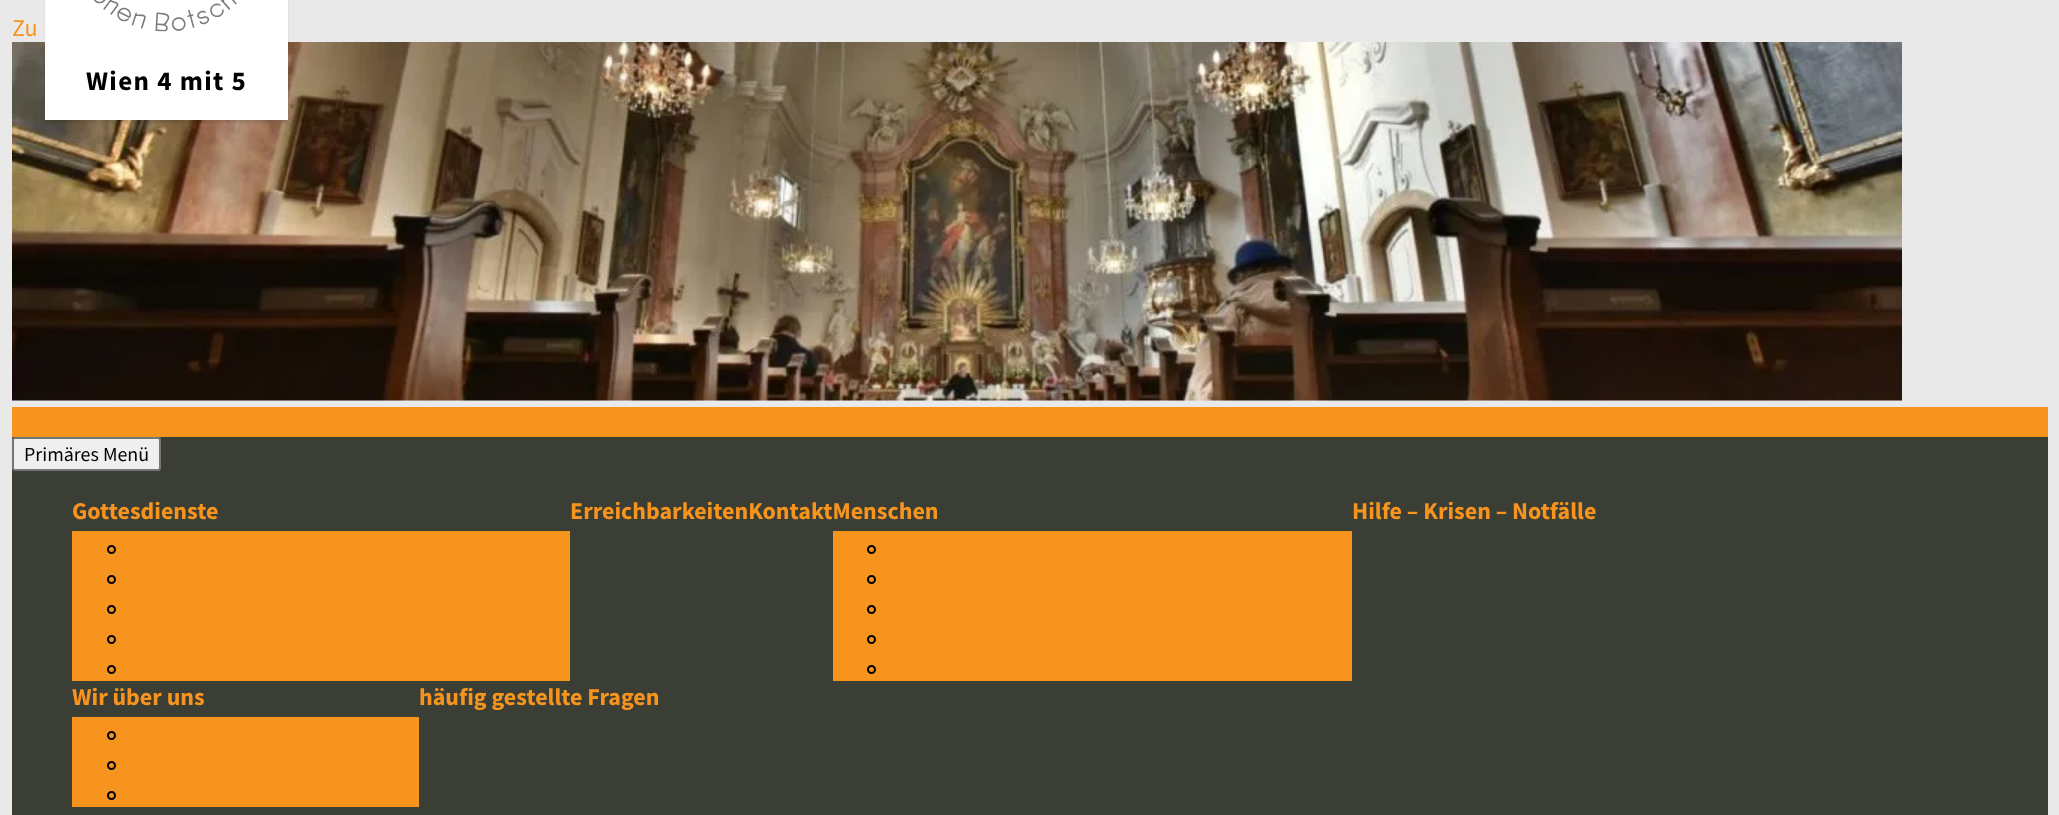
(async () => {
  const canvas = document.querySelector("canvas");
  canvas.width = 2059;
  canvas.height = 815;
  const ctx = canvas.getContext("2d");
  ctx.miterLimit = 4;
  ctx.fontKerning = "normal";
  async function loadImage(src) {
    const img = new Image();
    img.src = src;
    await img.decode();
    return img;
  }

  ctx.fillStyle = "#e9e9e9";
  ctx.fillRect(0, 0, 2059, 815);
  ctx.drawImage(await loadImage("img/1.png"), 12, 42, 1890, 359);
  ctx.fillStyle = "#3a3e35";
  ctx.fillRect(12, 437, 2036, 378);
  ctx.fillStyle = "rgba(0, 0, 0, 0.11)";
  ctx.filter = "blur(1px)";
  ctx.beginPath();
  ctx.rect(45, -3, 243, 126);
  ctx.fill();
  ctx.filter = "none";
  ctx.fillStyle = "#ffffff";
  ctx.fillRect(45, 0, 243, 120);
  ctx.drawImage(await loadImage("img/2.png"), 94, 0, 143, 32);
  ctx.fillStyle = "#f7941e";
  ctx.fillRect(12, 407, 2036, 30);
  ctx.fillStyle = "#efefef";
  ctx.beginPath();
  ctx.roundRect(13, 438, 147, 32, 2);
  ctx.fill();
  ctx.strokeStyle = "#767676";
  ctx.lineWidth = 2;
  ctx.stroke();
  ctx.fillStyle = "#f7941e";
  ctx.fillRect(72, 531, 498, 150);
  ctx.beginPath();
  ctx.arc(111.5, 549.5, 3.5, 0, Math.PI * 2);
  ctx.strokeStyle = "#000000";
  ctx.stroke();
  ctx.beginPath();
  ctx.arc(111.5, 579.5, 3.5, 0, Math.PI * 2);
  ctx.stroke();
  ctx.beginPath();
  ctx.arc(111.5, 609.5, 3.5, 0, Math.PI * 2);
  ctx.stroke();
  ctx.beginPath();
  ctx.arc(111.5, 639.5, 3.5, 0, Math.PI * 2);
  ctx.stroke();
  ctx.beginPath();
  ctx.arc(111.5, 669.5, 3.5, 0, Math.PI * 2);
  ctx.stroke();
  ctx.fillRect(833, 531, 519, 150);
  ctx.beginPath();
  ctx.arc(871.5, 549.5, 3.5, 0, Math.PI * 2);
  ctx.stroke();
  ctx.beginPath();
  ctx.arc(871.5, 579.5, 3.5, 0, Math.PI * 2);
  ctx.stroke();
  ctx.beginPath();
  ctx.arc(871.5, 609.5, 3.5, 0, Math.PI * 2);
  ctx.stroke();
  ctx.beginPath();
  ctx.arc(871.5, 639.5, 3.5, 0, Math.PI * 2);
  ctx.stroke();
  ctx.beginPath();
  ctx.arc(871.5, 669.5, 3.5, 0, Math.PI * 2);
  ctx.stroke();
  ctx.fillRect(72, 717, 347, 90);
  ctx.beginPath();
  ctx.arc(111.5, 735.5, 3.5, 0, Math.PI * 2);
  ctx.stroke();
  ctx.beginPath();
  ctx.arc(111.5, 765.5, 3.5, 0, Math.PI * 2);
  ctx.stroke();
  ctx.beginPath();
  ctx.arc(111.5, 795.5, 3.5, 0, Math.PI * 2);
  ctx.stroke();
  ctx.font = "24px Source Sans Pro";
  ctx.fillText("Zu", 12, 36);
  ctx.letterSpacing = "1.4px";
  ctx.font = "bold 27px Source Sans Pro";
  ctx.fillStyle = "#000000";
  ctx.fillText("Wien 4 mit 5", 86, 90);
  ctx.letterSpacing = "0px";
  ctx.font = "20px Source Sans Pro";
  ctx.fillText("Primäres Menü", 24, 461);
  ctx.font = "bold 24px Source Sans Pro";
  ctx.fillStyle = "#f7941e";
  for (const [text, x, y] of [
    ["Gottesdienste", 72, 519],
    ["ErreichbarkeitenKontaktMenschen", 570, 519],
    ["Hilfe – Krisen – Notfälle", 1352, 519],
    ["Wir über uns", 72, 705],
    ["häufig gestellte Fragen", 419, 705],
  ]) {
    ctx.fillText(text, x, y);
  }
})();
